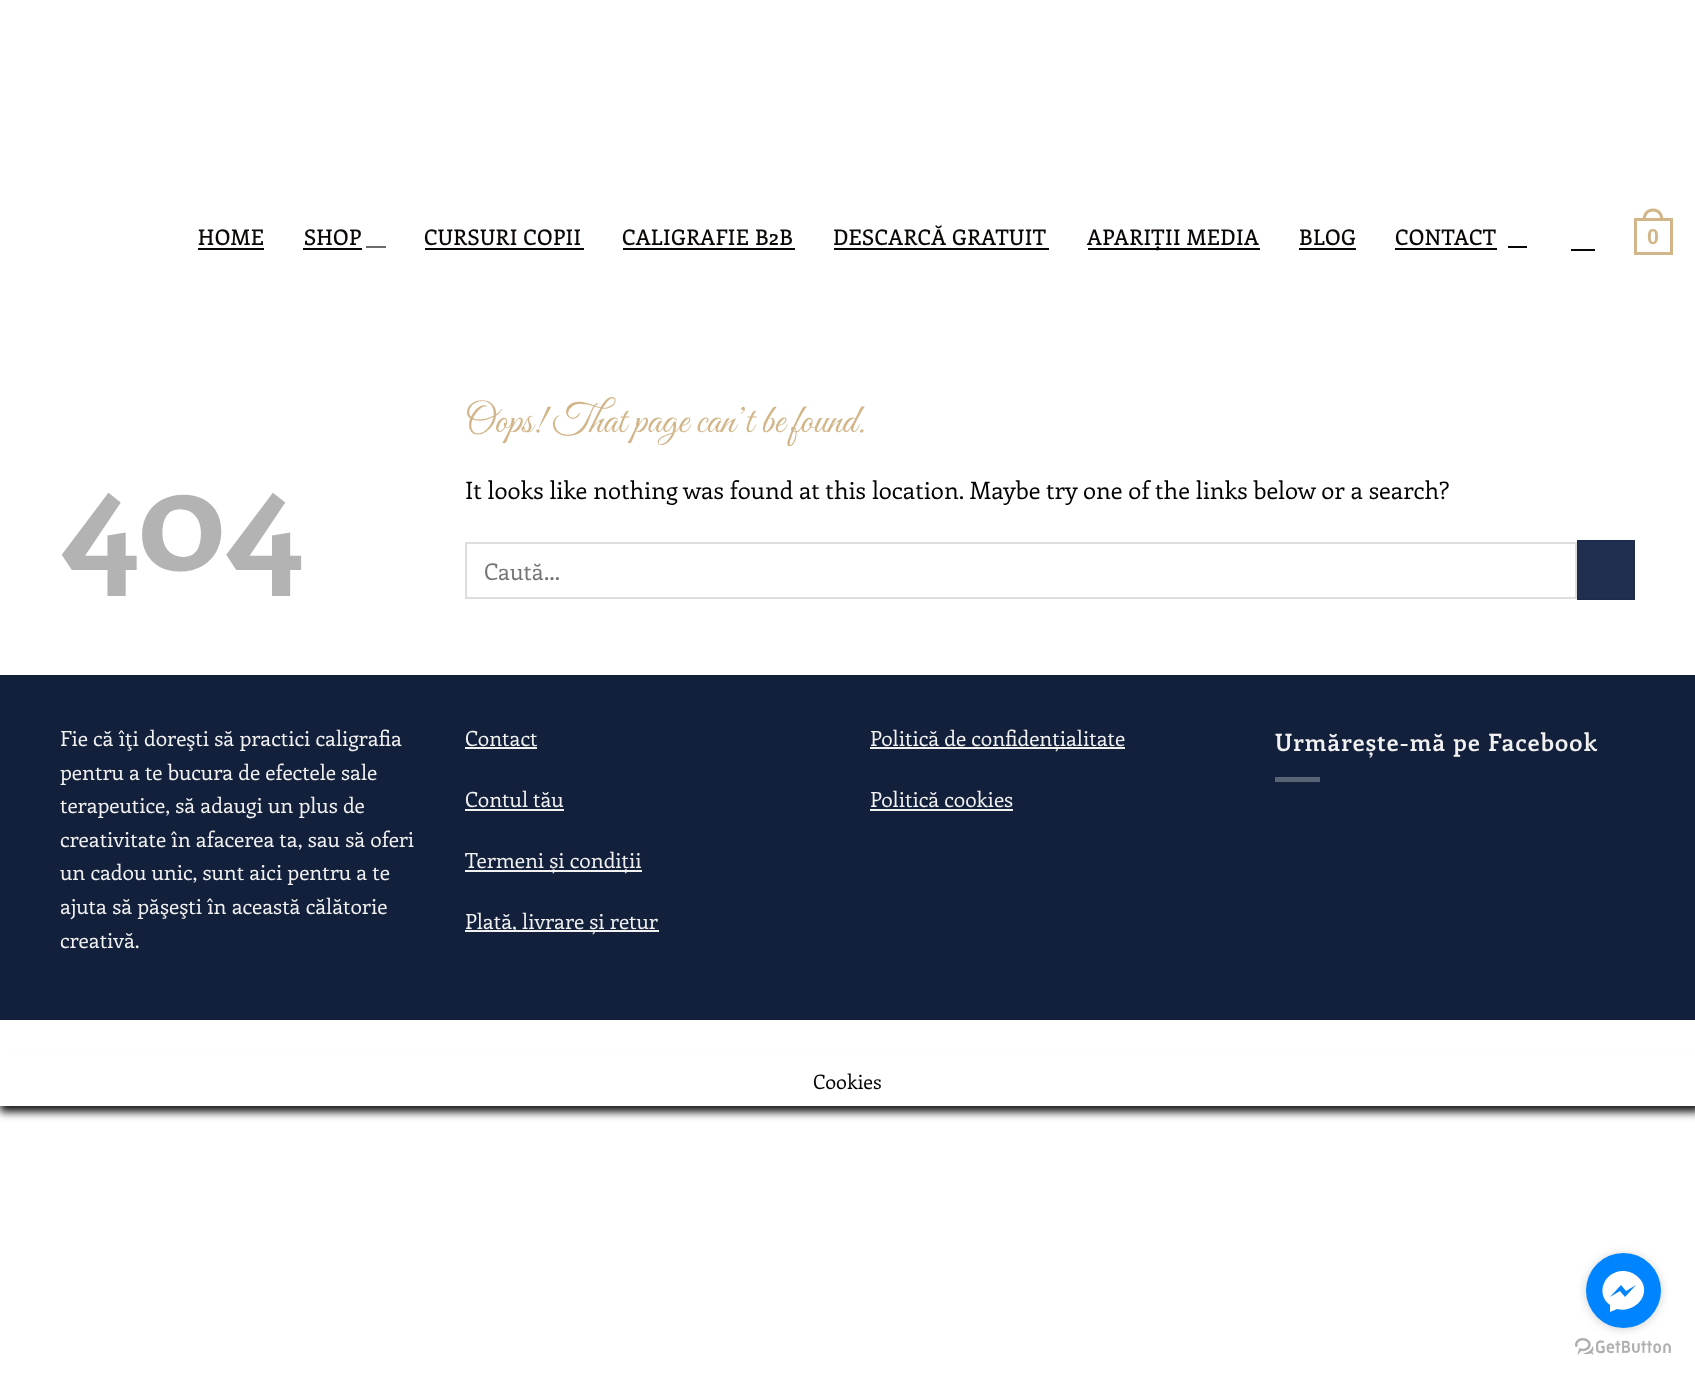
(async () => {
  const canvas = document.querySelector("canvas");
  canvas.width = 1695;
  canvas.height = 1378;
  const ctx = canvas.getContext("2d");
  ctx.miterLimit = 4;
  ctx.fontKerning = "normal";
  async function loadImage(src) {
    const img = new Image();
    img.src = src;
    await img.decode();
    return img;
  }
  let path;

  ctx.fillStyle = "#ffffff";
  ctx.fillRect(0, 0, 1695, 1378);
  ctx.save();
  path = new Path2D("M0 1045H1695V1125H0ZM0 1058H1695V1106H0Z");
  ctx.clip(path, "evenodd");
  ctx.fillStyle = "#161616";
  ctx.filter = "blur(4px)";
  ctx.beginPath();
  ctx.rect(0, 1058, 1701, 54);
  ctx.fill();
  ctx.filter = "none";
  ctx.restore();
  for (const [x, y, w, h, color] of [
    [0, 1049, 1695, 9, "#ffffff"],
    [198, 248, 66, 2, "#0b0705"],
    [303, 248, 59, 2, "#0b0705"],
    [366, 246, 20, 2, "#6d6a69"],
    [425, 248, 159, 2, "#0b0705"],
    [623, 248, 172, 2, "#0b0705"],
    [834, 248, 215, 2, "#0b0705"],
    [1088, 248, 172, 2, "#0b0705"],
    [1299, 248, 57, 2, "#0b0705"],
    [1395, 248, 102, 2, "#0b0705"],
  ]) {
    ctx.fillStyle = color;
    ctx.fillRect(x, y, w, h);
  }
  ctx.strokeStyle = "#d2b588";
  ctx.lineWidth = 3;
  ctx.strokeRect(1635.5, 219.5, 36, 34);
  ctx.fillStyle = "#d2b588";
  path = new Path2D("M1653 208.5C1660 208.5 1663.5 214 1663.5 220.5H1642.5C1642.5 214 1646 208.5 1653 208.5ZM1653 211.5C1658.5 211.5 1660.5 216 1660.5 220.5H1645.5C1645.5 216 1647.5 211.5 1653 211.5Z");
  ctx.fill(path, "evenodd");
  ctx.fillStyle = "#0b0705";
  ctx.fillRect(1508, 246, 19, 2);
  ctx.fillRect(1571, 249, 24, 2);
  ctx.strokeStyle = "#dddddd";
  ctx.lineWidth = 2;
  ctx.strokeRect(466, 543, 1110, 55);
  ctx.fillStyle = "#202e50";
  ctx.beginPath();
  ctx.rect(1578, 541, 56, 58);
  ctx.fill();
  ctx.strokeStyle = "#1e2c4c";
  ctx.stroke();
  for (const [x, y, w, h, color] of [
    [0, 677, 1695, 343, "#12203b"],
    [0, 675, 1695, 2, "#111e38"],
    [465, 747, 72, 2, "#f1f1f1"],
    [465, 809, 99, 2, "#f1f1f1"],
    [465, 870, 177, 2, "#f1f1f1"],
    [465, 930, 194, 2, "#f1f1f1"],
    [870, 747, 255, 2, "#f1f1f1"],
    [870, 809, 143, 2, "#f1f1f1"],
    [1275, 777, 45, 5, "#596376"],
  ]) {
    ctx.fillStyle = color;
    ctx.fillRect(x, y, w, h);
  }
  ctx.drawImage(await loadImage("img/1.png"), 1575, 1338, 96, 17);
  ctx.fillStyle = "rgba(136, 136, 136, 0.4)";
  ctx.filter = "blur(5px)";
  ctx.beginPath();
  ctx.roundRect(1586, 1254, 75, 75, 37.5);
  ctx.fill();
  ctx.filter = "none";
  ctx.fillStyle = "#0084ff";
  ctx.beginPath();
  ctx.arc(1623.5, 1290.5, 37.5, 0, Math.PI * 2);
  ctx.fill();
  ctx.fillStyle = "#ffffff";
  path = new Path2D("M1623 1271C1604 1271 1595 1294 1610 1305V1312L1617 1309C1636 1314 1654 1292 1638 1277C1634 1273 1628 1271 1623 1271ZM1625 1297L1620 1291L1610 1297L1621 1285L1626 1291L1636 1285Z");
  ctx.fill(path);
  ctx.letterSpacing = "0.4px";
  ctx.font = "500 21.5px Enriqueta";
  ctx.fillStyle = "#0b0705";
  for (const [text, x, y] of [
    ["HOME", 198, 245],
    ["SHOP", 304, 245],
    ["CURSURI COPII", 424, 245],
    ["CALIGRAFIE B2B", 622, 245],
    ["DESCARCĂ GRATUIT", 833, 245],
    ["APARIȚII MEDIA", 1087, 245],
    ["BLOG", 1299, 245],
    ["CONTACT", 1395, 245],
  ]) {
    ctx.fillText(text, x, y);
  }
  ctx.font = "bold 21.5px Liberation Sans";
  ctx.fillStyle = "#d2b588";
  ctx.fillText("0", 1647, 244);
  ctx.letterSpacing = "0px";
  ctx.font = "bold 144px Enriqueta";
  ctx.fillStyle = "#b3b3b3";
  ctx.fillText("404", 60, 570);
  ctx.wordSpacing = "0.5px";
  ctx.font = "40.75px Great Vibes";
  ctx.fillStyle = "#d2b588";
  ctx.fillText("Oops! That page can’t be found.", 465, 432);
  ctx.wordSpacing = "0px";
  ctx.font = "24px Enriqueta";
  ctx.fillStyle = "#000000";
  ctx.fillText("It looks like nothing was found at this location. Maybe try one of the links below or a search?", 465, 499);
  ctx.font = "23px Enriqueta";
  ctx.fillStyle = "#757575";
  ctx.fillText("Caută…", 484, 580);
  ctx.font = "21px Enriqueta";
  ctx.fillStyle = "#f1f1f1";
  for (const [text, x, y] of [
    ["Fie că îţi doreşti să practici caligrafia", 60, 746],
    ["pentru a te bucura de efectele sale", 60, 780],
    ["terapeutice, să adaugi un plus de", 60, 813],
    ["creativitate în afacerea ta, sau să oferi", 60, 847],
    ["un cadou unic, sunt aici pentru a te", 60, 880],
    ["ajuta să păşeşti în această călătorie", 60, 914],
    ["creativă.", 60, 948],
    ["Contact", 465, 746],
    ["Contul tău", 465, 807],
    ["Termeni și condiții", 465, 868],
    ["Plată, livrare și retur", 465, 929],
    ["Politică de confidențialitate", 870, 746],
    ["Politică cookies", 870, 807],
  ]) {
    ctx.fillText(text, x, y);
  }
  ctx.letterSpacing = "1.2px";
  ctx.font = "600 24px Enriqueta";
  ctx.fillText("Urmărește-mă pe Facebook", 1275, 751);
  ctx.letterSpacing = "0px";
  ctx.font = "20px Enriqueta";
  ctx.fillStyle = "#000000";
  ctx.fillText("Cookies", 813, 1089);
})();
